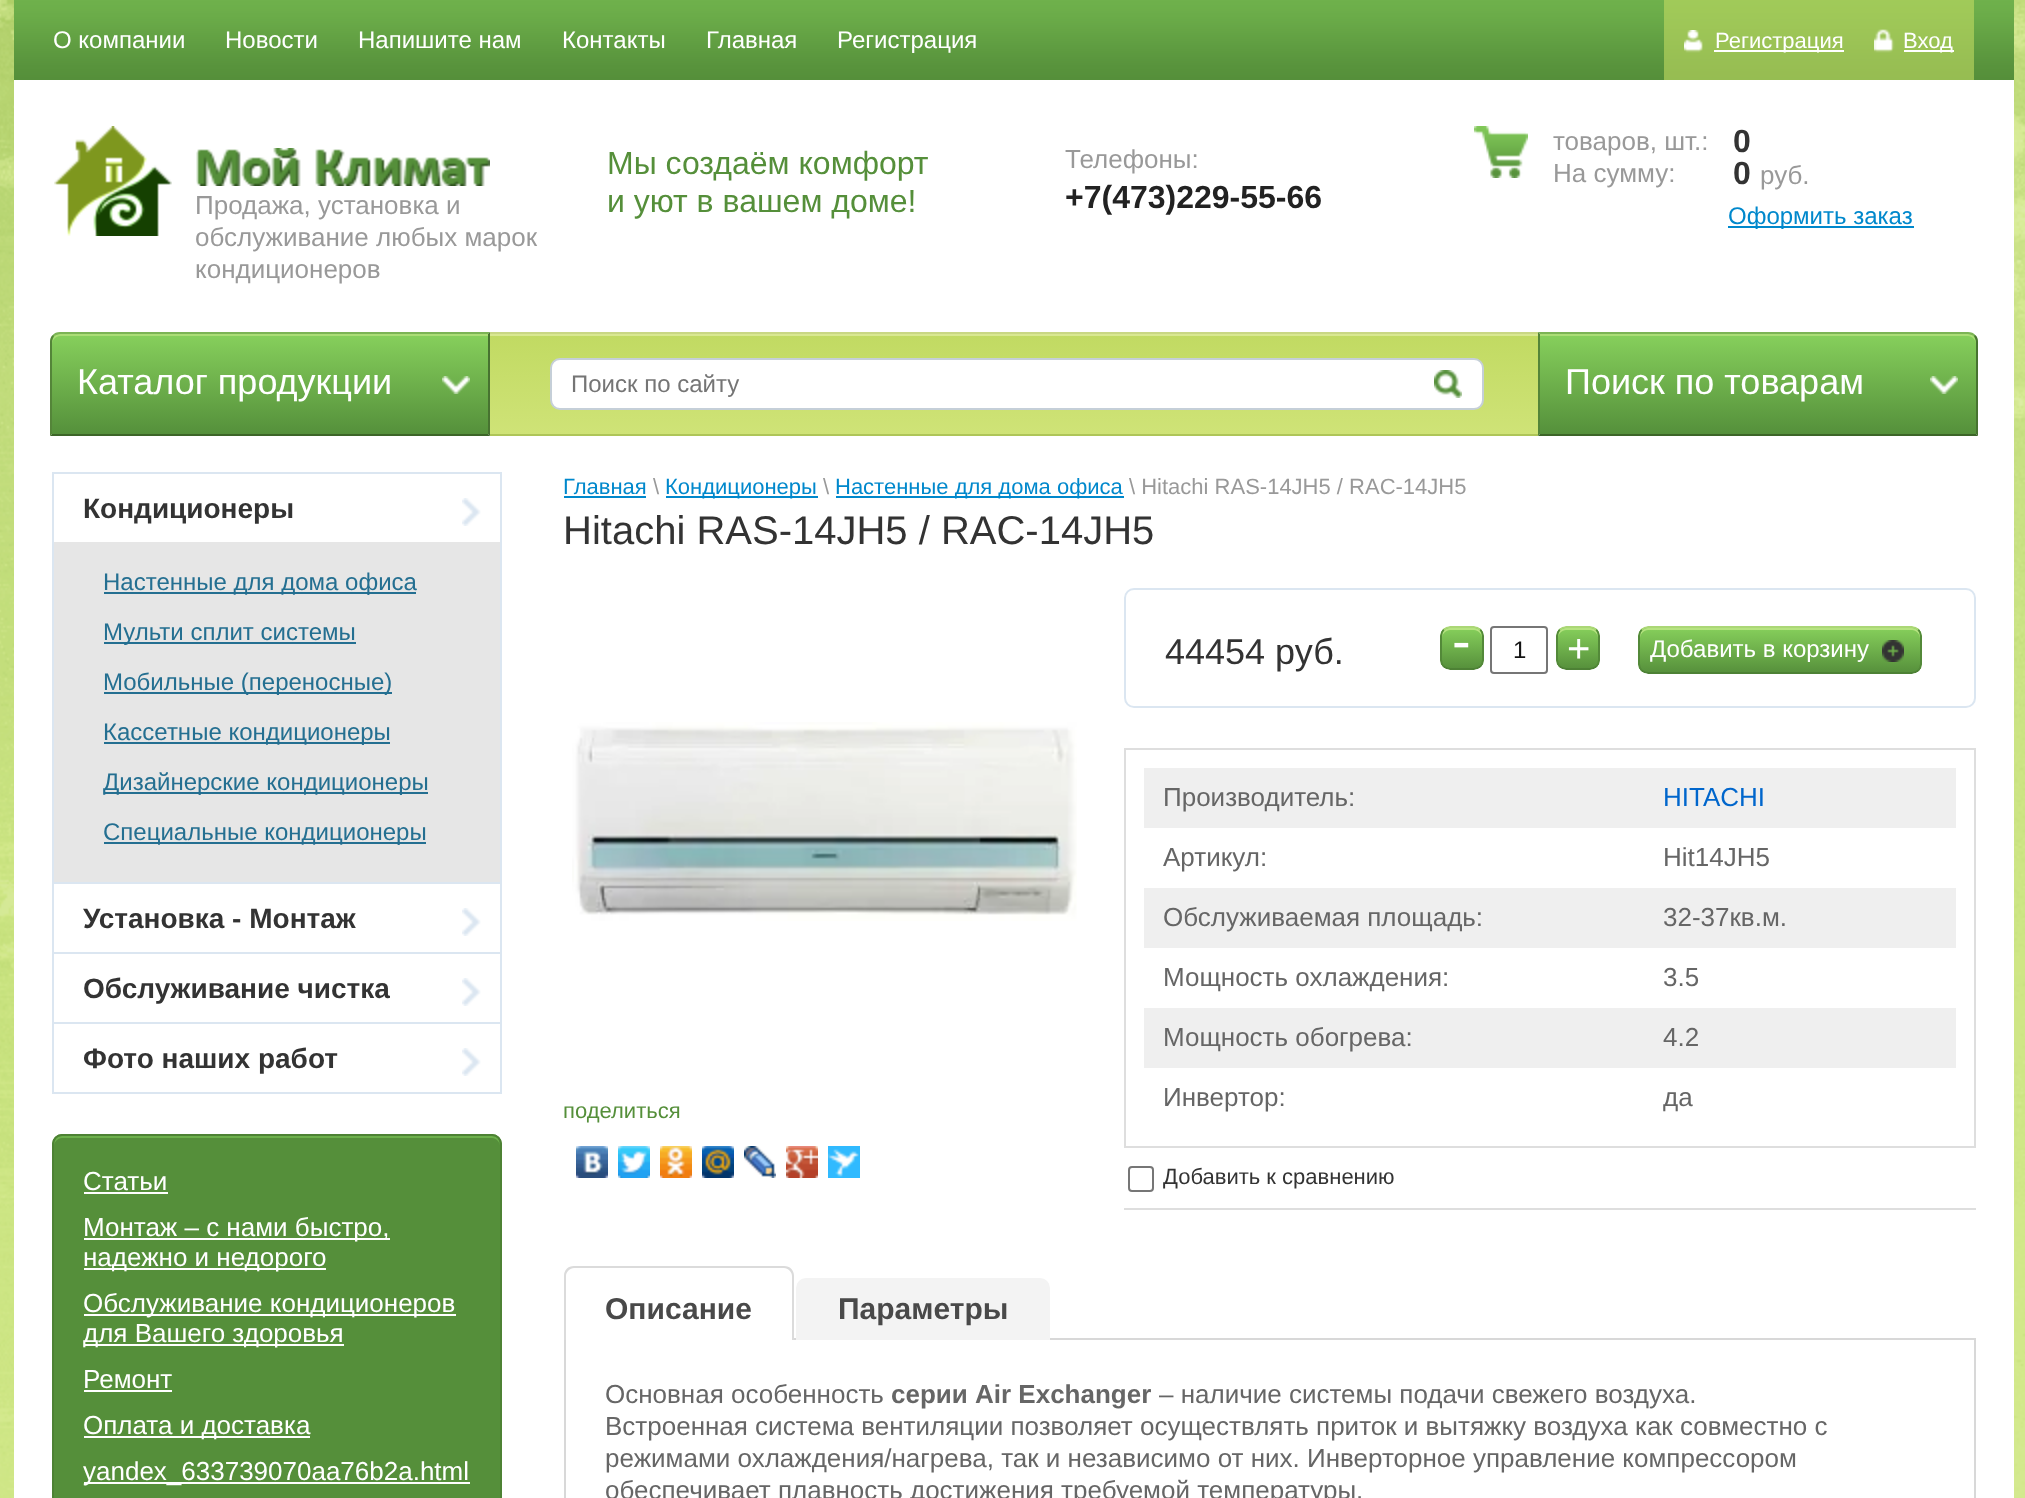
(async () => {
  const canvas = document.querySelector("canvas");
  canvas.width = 2025;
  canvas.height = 1498;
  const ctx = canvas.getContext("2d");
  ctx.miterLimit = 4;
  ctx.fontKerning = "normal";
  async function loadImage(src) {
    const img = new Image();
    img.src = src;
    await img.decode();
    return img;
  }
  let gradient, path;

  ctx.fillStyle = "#ffffff";
  ctx.fillRect(0, 0, 2025, 1498);
  ctx.drawImage(await loadImage("img/1.png"), 0, 0, 2025, 1498);
  ctx.fillRect(14, 80, 2000, 1418);
  ctx.drawImage(await loadImage("img/2.png"), 14, 0, 2000, 80);
  ctx.drawImage(await loadImage("img/3.png"), 1664, 0, 310, 80);
  ctx.drawImage(await loadImage("img/4.png"), 1684, 30, 19, 23);
  ctx.fillRect(1714, 50, 130, 2);
  ctx.drawImage(await loadImage("img/5.png"), 1874, 29, 21, 24);
  ctx.fillRect(1904, 50, 50, 2);
  ctx.drawImage(await loadImage("img/6.png"), 54, 126, 118, 110);
  ctx.drawImage(await loadImage("img/7.png"), 196, 148, 294, 38);
  ctx.drawImage(await loadImage("img/8.png"), 1474, 126, 54, 52);
  ctx.fillStyle = "#0088cc";
  ctx.fillRect(1728, 226, 186, 2);
  ctx.save();
  ctx.beginPath();
  ctx.roundRect(50, 332, 440, 104, [10, 0, 0, 0]);
  ctx.clip();
  gradient = ctx.createLinearGradient(270, 434, 270, 334);
  gradient.addColorStop(0, "#55903b");
  gradient.addColorStop(1, "#87d05c");
  ctx.fillStyle = gradient;
  ctx.fillRect(50, 334, 438, 100);
  ctx.restore();
  ctx.fillStyle = "#abdd76";
  path = new Path2D("M60 336H488V334H60C54 334 52 339 52 344C52 340 56 336 60 336Z");
  ctx.fill(path);
  ctx.fillStyle = "#7cb455";
  path = new Path2D("M60 332C57 332 54 333 53 335L54 336C56 335 58 334 60 334H488L490 332Z");
  ctx.fill(path);
  ctx.fillStyle = "#477330";
  path = new Path2D("M490 332L488 334V434L490 436Z");
  ctx.fill(path);
  ctx.fillStyle = "#3c6528";
  path = new Path2D("M490 436L488 434H52L50 436Z");
  ctx.fill(path);
  ctx.fillStyle = "#548539";
  path = new Path2D("M50 436L52 434V342C52 340 53 338 54 336L53 335C51 336 50 339 50 342Z");
  ctx.fill(path);
  ctx.drawImage(await loadImage("img/9.png"), 442, 376, 28, 18);
  gradient = ctx.createLinearGradient(1014, 334, 1014, 434);
  gradient.addColorStop(0, "#c1da62");
  gradient.addColorStop(1, "#cfe377");
  ctx.fillStyle = gradient;
  ctx.fillRect(490, 336, 1048, 98);
  for (const [x, y, w, h, color] of [
    [490, 334, 1048, 2, "#d9e891"],
    [490, 332, 1048, 2, "#c9d784"],
    [490, 434, 1048, 2, "#aec558"],
  ]) {
    ctx.fillStyle = color;
    ctx.fillRect(x, y, w, h);
  }
  ctx.fillStyle = "#ffffff";
  ctx.beginPath();
  ctx.roundRect(551, 359, 932, 50, 9);
  ctx.fill();
  ctx.strokeStyle = "#c5cfd8";
  ctx.lineWidth = 2;
  ctx.stroke();
  ctx.drawImage(await loadImage("img/10.png"), 1434, 370, 28, 28);
  ctx.save();
  ctx.beginPath();
  ctx.roundRect(1538, 332, 440, 104, [0, 10, 0, 0]);
  ctx.clip();
  gradient = ctx.createLinearGradient(1758, 434, 1758, 334);
  gradient.addColorStop(0, "#55903b");
  gradient.addColorStop(1, "#87d05c");
  ctx.fillStyle = gradient;
  ctx.fillRect(1540, 334, 438, 100);
  ctx.restore();
  ctx.fillStyle = "#abdd76";
  path = new Path2D("M1540 336H1968C1972 336 1976 340 1976 344C1976 339 1974 334 1968 334H1540Z");
  ctx.fill(path);
  ctx.fillStyle = "#7cb455";
  path = new Path2D("M1538 332L1540 334H1968C1970 334 1972 335 1974 336L1975 335C1974 333 1971 332 1968 332Z");
  ctx.fill(path);
  ctx.fillStyle = "#477330";
  path = new Path2D("M1978 436V342C1978 339 1977 336 1975 335L1974 336C1975 338 1976 340 1976 342V434Z");
  ctx.fill(path);
  ctx.fillStyle = "#3c6528";
  path = new Path2D("M1978 436L1976 434H1540L1538 436Z");
  ctx.fill(path);
  ctx.fillStyle = "#548539";
  path = new Path2D("M1538 332V436L1540 434V334Z");
  ctx.fill(path);
  ctx.drawImage(await loadImage("img/9.png"), 1930, 376, 28, 18);
  ctx.strokeStyle = "#dbe6f1";
  ctx.strokeRect(53, 473, 448, 620);
  ctx.drawImage(await loadImage("img/11.png"), 462, 498, 19, 28);
  for (const [x, y, w, h, color] of [
    [54, 542, 446, 340, "#e6e6e6"],
    [104, 592, 312, 2, "#246f91"],
    [104, 642, 252, 2, "#246f91"],
    [104, 692, 288, 2, "#246f91"],
    [104, 742, 286, 2, "#246f91"],
    [104, 792, 324, 2, "#246f91"],
    [104, 842, 322, 2, "#246f91"],
    [54, 882, 446, 2, "#dbe6f1"],
  ]) {
    ctx.fillStyle = color;
    ctx.fillRect(x, y, w, h);
  }
  ctx.drawImage(await loadImage("img/11.png"), 462, 908, 19, 28);
  ctx.fillRect(54, 952, 446, 2);
  ctx.drawImage(await loadImage("img/11.png"), 462, 978, 19, 28);
  ctx.fillRect(54, 1022, 446, 2);
  ctx.drawImage(await loadImage("img/11.png"), 462, 1048, 19, 28);
  ctx.fillStyle = "#558f3a";
  ctx.beginPath();
  ctx.roundRect(52, 1134, 450, 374, 10);
  ctx.fill();
  ctx.fillStyle = "#6db04c";
  path = new Path2D("M62 1138H492C496 1138 500 1142 500 1146C500 1141 498 1136 492 1136H62C56 1136 54 1141 54 1146C54 1142 58 1138 62 1138Z");
  ctx.fill(path);
  ctx.beginPath();
  ctx.roundRect(53, 1135, 448, 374, 9);
  ctx.strokeStyle = "#4d8234";
  ctx.stroke();
  for (const [x, y, w, h, color] of [
    [84, 1192, 84, 2, "#ffffff"],
    [84, 1238, 306, 2, "#ffffff"],
    [84, 1268, 242, 2, "#ffffff"],
    [84, 1314, 372, 2, "#ffffff"],
    [84, 1344, 260, 2, "#ffffff"],
    [84, 1390, 88, 2, "#ffffff"],
    [84, 1436, 226, 2, "#ffffff"],
    [84, 1482, 386, 2, "#ffffff"],
    [564, 496, 82, 2, "#0088cc"],
    [666, 496, 152, 2, "#0088cc"],
    [836, 496, 288, 2, "#0088cc"],
  ]) {
    ctx.fillStyle = color;
    ctx.fillRect(x, y, w, h);
  }
  ctx.drawImage(await loadImage("img/12.png"), 572, 722, 505, 199);
  ctx.drawImage(await loadImage("img/13.png"), 576, 1146, 32, 32);
  ctx.drawImage(await loadImage("img/14.png"), 618, 1146, 32, 32);
  ctx.drawImage(await loadImage("img/15.png"), 660, 1146, 32, 32);
  ctx.drawImage(await loadImage("img/16.png"), 702, 1146, 32, 32);
  ctx.drawImage(await loadImage("img/17.png"), 744, 1146, 32, 32);
  ctx.drawImage(await loadImage("img/18.png"), 786, 1146, 32, 32);
  ctx.drawImage(await loadImage("img/19.png"), 828, 1146, 32, 32);
  ctx.beginPath();
  ctx.roundRect(1125, 589, 850, 118, 9);
  ctx.strokeStyle = "#dbe6f1";
  ctx.stroke();
  ctx.save();
  ctx.beginPath();
  ctx.roundRect(1440, 626, 44, 44, 10);
  ctx.clip();
  ctx.beginPath();
  ctx.roundRect(1440, 626, 44, 44, 10);
  ctx.clip();
  gradient = ctx.createLinearGradient(1462, 628, 1462, 668);
  gradient.addColorStop(0, "#86cf5b");
  gradient.addColorStop(1, "#57913c");
  ctx.fillStyle = gradient;
  ctx.fillRect(1440, 628, 44, 40);
  ctx.restore();
  ctx.fillStyle = "#b6e381";
  path = new Path2D("M1450 630C1446 630 1442 634 1442 638C1442 625 1453 628 1462 628C1471 628 1482 625 1482 638C1482 634 1478 630 1474 630Z");
  ctx.fill(path);
  ctx.save();
  ctx.beginPath();
  ctx.roundRect(1440, 626, 44, 44, 10);
  ctx.clip();
  path = new Path2D("M1443.5 629.5C1445.5 628 1447.5 627 1450 627H1474C1476.5 627 1478.5 628 1480.5 629.5");
  ctx.strokeStyle = "#abd776";
  ctx.stroke(path);
  path = new Path2D("M1480.5 629.5C1482 631.5 1483 633.5 1483 636V660C1483 662.5 1482 664.5 1480.5 666.5");
  ctx.strokeStyle = "#538939";
  ctx.stroke(path);
  path = new Path2D("M1480.5 666.5C1478.5 668 1476.5 669 1474 669H1450C1447.5 669 1445.5 668 1443.5 666.5");
  ctx.strokeStyle = "#4d8135";
  ctx.stroke(path);
  path = new Path2D("M1443.5 666.5C1442 664.5 1441 662.5 1441 660V636C1441 633.5 1442 631.5 1443.5 629.5");
  ctx.strokeStyle = "#538939";
  ctx.stroke(path);
  ctx.restore();
  ctx.beginPath();
  ctx.roundRect(1491, 627, 56, 46, 3);
  ctx.strokeStyle = "#767676";
  ctx.stroke();
  ctx.save();
  ctx.beginPath();
  ctx.roundRect(1556, 626, 44, 44, 10);
  ctx.clip();
  ctx.beginPath();
  ctx.roundRect(1556, 626, 44, 44, 10);
  ctx.clip();
  gradient = ctx.createLinearGradient(1578, 628, 1578, 668);
  gradient.addColorStop(0, "#86cf5b");
  gradient.addColorStop(1, "#57913c");
  ctx.fillStyle = gradient;
  ctx.fillRect(1556, 628, 44, 40);
  ctx.restore();
  path = new Path2D("M1566 630C1562 630 1558 634 1558 638C1558 625 1569 628 1578 628C1587 628 1598 625 1598 638C1598 634 1594 630 1590 630Z");
  ctx.fill(path);
  ctx.save();
  ctx.beginPath();
  ctx.roundRect(1556, 626, 44, 44, 10);
  ctx.clip();
  path = new Path2D("M1559.5 629.5C1561.5 628 1563.5 627 1566 627H1590C1592.5 627 1594.5 628 1596.5 629.5");
  ctx.strokeStyle = "#abd776";
  ctx.stroke(path);
  path = new Path2D("M1596.5 629.5C1598 631.5 1599 633.5 1599 636V660C1599 662.5 1598 664.5 1596.5 666.5");
  ctx.strokeStyle = "#538939";
  ctx.stroke(path);
  path = new Path2D("M1596.5 666.5C1594.5 668 1592.5 669 1590 669H1566C1563.5 669 1561.5 668 1559.5 666.5");
  ctx.strokeStyle = "#4d8135";
  ctx.stroke(path);
  path = new Path2D("M1559.5 666.5C1558 664.5 1557 662.5 1557 660V636C1557 633.5 1558 631.5 1559.5 629.5");
  ctx.strokeStyle = "#538939";
  ctx.stroke(path);
  ctx.restore();
  ctx.save();
  ctx.beginPath();
  ctx.roundRect(1638, 626, 284, 48, 10);
  ctx.clip();
  ctx.beginPath();
  ctx.roundRect(1638, 626, 284, 48, 10);
  ctx.clip();
  gradient = ctx.createLinearGradient(1780, 628, 1780, 672);
  gradient.addColorStop(0, "#86cf5b");
  gradient.addColorStop(1, "#57913c");
  ctx.fillStyle = gradient;
  ctx.fillRect(1638, 628, 284, 44);
  ctx.restore();
  path = new Path2D("M1648 630C1644 630 1640 634 1640 638V636C1640 632 1644 628 1648 628H1912C1916 628 1920 632 1920 636V638C1920 634 1916 630 1912 630Z");
  ctx.fill(path);
  ctx.save();
  ctx.beginPath();
  ctx.roundRect(1638, 626, 284, 48, 10);
  ctx.clip();
  path = new Path2D("M1641.5 629.5C1643.5 628 1645.5 627 1648 627H1912C1914.5 627 1916.5 628 1918.5 629.5");
  ctx.strokeStyle = "#abd776";
  ctx.stroke(path);
  path = new Path2D("M1918.5 629.5C1920 631.5 1921 633.5 1921 636V664C1921 666.5 1920 668.5 1918.5 670.5");
  ctx.strokeStyle = "#538939";
  ctx.stroke(path);
  path = new Path2D("M1918.5 670.5C1916.5 672 1914.5 673 1912 673H1648C1645.5 673 1643.5 672 1641.5 670.5");
  ctx.strokeStyle = "#4d8135";
  ctx.stroke(path);
  path = new Path2D("M1641.5 670.5C1640 668.5 1639 666.5 1639 664V636C1639 633.5 1640 631.5 1641.5 629.5");
  ctx.strokeStyle = "#538939";
  ctx.stroke(path);
  ctx.restore();
  ctx.drawImage(await loadImage("img/20.png"), 1882, 640, 22, 22);
  ctx.strokeStyle = "#dedede";
  ctx.strokeRect(1125, 749, 850, 398);
  for (const [x, y, w, h, color] of [
    [1144, 768, 812, 60, "#efefef"],
    [1144, 888, 812, 60, "#efefef"],
    [1144, 1008, 812, 60, "#efefef"],
    [1124, 1208, 852, 2, "#dedede"],
  ]) {
    ctx.fillStyle = color;
    ctx.fillRect(x, y, w, h);
  }
  ctx.beginPath();
  ctx.roundRect(1129, 1167, 24, 24, 3);
  ctx.strokeStyle = "#767676";
  ctx.stroke();
  ctx.fillStyle = "#d8d8d8";
  ctx.fillRect(564, 1338, 2, 160);
  ctx.fillStyle = "#ffffff";
  ctx.beginPath();
  ctx.roundRect(564, 1266, 230, 74, [10, 10, 0, 0]);
  ctx.fill();
  ctx.fillStyle = "#dbdbdb";
  path = new Path2D("M574 1266H784C790 1266 794 1270 794 1276V1340H564V1276C564 1270 568 1266 574 1266ZM574 1268H784C788 1268 792 1272 792 1276V1340H566V1276C566 1272 570 1268 574 1268Z");
  ctx.fill(path, "evenodd");
  ctx.fillStyle = "#d8d8d8";
  ctx.fillRect(794, 1338, 1182, 2);
  ctx.fillStyle = "#f3f3f3";
  ctx.beginPath();
  ctx.roundRect(796, 1278, 254, 62, [10, 10, 0, 0]);
  ctx.fill();
  ctx.fillStyle = "#d8d8d8";
  ctx.fillRect(1974, 1338, 2, 160);
  ctx.font = "24px Liberation Sans";
  ctx.fillStyle = "#ffffff";
  for (const [text, x, y] of [
    ["О компании", 53, 48],
    ["Новости", 225, 48],
    ["Напишите нам", 358, 48],
    ["Контакты", 562, 48],
    ["Главная", 706, 48],
    ["Регистрация", 837, 48],
  ]) {
    ctx.fillText(text, x, y);
  }
  ctx.font = "22px Liberation Sans";
  ctx.fillText("Регистрация", 1715, 48);
  ctx.fillText("Вход", 1903, 48);
  ctx.font = "32px Liberation Sans";
  ctx.fillStyle = "#558f3a";
  ctx.fillText("Мы создаём комфорт", 607, 174);
  ctx.fillText("и уют в вашем доме!", 607, 212);
  ctx.font = "26px Liberation Sans";
  ctx.fillStyle = "#999999";
  ctx.fillText("Телефоны:", 1065, 168);
  ctx.font = "bold 32px Liberation Sans";
  ctx.fillStyle = "#222222";
  ctx.fillText("+7(473)229-55-66", 1065, 208);
  ctx.font = "26px Liberation Sans";
  ctx.fillStyle = "#999999";
  for (const [text, x, y] of [
    ["Продажа, установка и", 195, 214],
    ["обслуживание любых марок", 195, 246],
    ["кондиционеров", 195, 278],
    ["товаров, шт.:", 1553, 150],
  ]) {
    ctx.fillText(text, x, y);
  }
  ctx.font = "bold 32px Liberation Sans";
  ctx.fillStyle = "#333333";
  ctx.fillText("0", 1733, 152);
  ctx.font = "26px Liberation Sans";
  ctx.fillStyle = "#999999";
  ctx.fillText("На сумму:", 1553, 182);
  ctx.font = "bold 32px Liberation Sans";
  ctx.fillStyle = "#333333";
  ctx.fillText("0", 1733, 184);
  ctx.font = "26px Liberation Sans";
  ctx.fillStyle = "#999999";
  ctx.fillText("руб.", 1760, 184);
  ctx.font = "24px Liberation Sans";
  ctx.fillStyle = "#0088cc";
  ctx.fillText("Оформить заказ", 1728, 224);
  ctx.font = "36px Liberation Sans";
  ctx.fillStyle = "#ffffff";
  ctx.fillText("Каталог продукции", 77, 394);
  ctx.font = "24px Liberation Sans";
  ctx.fillStyle = "#757575";
  ctx.fillText("Поиск по сайту", 571, 392);
  ctx.font = "36px Liberation Sans";
  ctx.fillStyle = "#ffffff";
  ctx.fillText("Поиск по товарам", 1565, 394);
  ctx.font = "bold 28px Liberation Sans";
  ctx.fillStyle = "#333333";
  ctx.fillText("Кондиционеры", 83, 518);
  ctx.font = "24px Liberation Sans";
  ctx.fillStyle = "#246f91";
  for (const [text, x, y] of [
    ["Настенные для дома офиса", 103, 590],
    ["Мульти сплит системы", 103, 640],
    ["Мобильные (переносные)", 103, 690],
    ["Кассетные кондиционеры", 103, 740],
    ["Дизайнерские кондиционеры", 103, 790],
    ["Специальные кондиционеры", 103, 840],
  ]) {
    ctx.fillText(text, x, y);
  }
  ctx.font = "bold 28px Liberation Sans";
  ctx.fillStyle = "#333333";
  for (const [text, x, y] of [
    ["Установка - Монтаж", 83, 928],
    ["Обслуживание чистка", 83, 998],
    ["Фото наших работ", 83, 1068],
  ]) {
    ctx.fillText(text, x, y);
  }
  ctx.font = "26px Liberation Sans";
  ctx.fillStyle = "#ffffff";
  for (const [text, x, y] of [
    ["Статьи", 83, 1190],
    ["Монтаж – с нами быстро,", 83, 1236],
    ["надежно и недорого", 83, 1266],
    ["Обслуживание кондиционеров", 83, 1312],
    ["для Вашего здоровья", 83, 1342],
    ["Ремонт", 83, 1388],
    ["Оплата и доставка", 83, 1434],
    ["yandex_633739070aa76b2a.html", 83, 1480],
  ]) {
    ctx.fillText(text, x, y);
  }
  ctx.font = "22px Liberation Sans";
  ctx.fillStyle = "#0088cc";
  ctx.fillText("Главная", 563, 494);
  ctx.fillStyle = "#999999";
  ctx.fillText("\\", 653, 494);
  ctx.fillStyle = "#0088cc";
  ctx.fillText("Кондиционеры", 665, 494);
  ctx.fillStyle = "#999999";
  ctx.fillText("\\", 823, 494);
  ctx.fillStyle = "#0088cc";
  ctx.fillText("Настенные для дома офиса", 835, 494);
  ctx.fillStyle = "#999999";
  ctx.fillText("\\ Hitachi RAS-14JH5 / RAC-14JH5", 1129, 494);
  ctx.font = "40px Liberation Sans";
  ctx.fillStyle = "#333333";
  ctx.fillText("Hitachi RAS-14JH5 / RAC-14JH5", 563, 544);
  ctx.font = "22px Liberation Sans";
  ctx.fillStyle = "#558f3a";
  ctx.fillText("поделиться", 563, 1118);
  ctx.font = "36px Liberation Sans";
  ctx.fillStyle = "#333333";
  ctx.fillText("44454 руб.", 1165, 664);
  ctx.font = "56px Liberation Sans";
  ctx.fillStyle = "#ffffff";
  ctx.fillText("-", 1452, 660);
  ctx.font = "24px Liberation Sans";
  ctx.fillStyle = "#131313";
  ctx.fillText("1", 1513, 658);
  ctx.font = "40px Liberation Sans";
  ctx.fillStyle = "#ffffff";
  ctx.fillText("+", 1567, 662);
  ctx.font = "24px Liberation Sans";
  ctx.fillText("Добавить в корзину", 1650, 657);
  ctx.font = "26px Liberation Sans";
  ctx.fillStyle = "#666666";
  ctx.fillText("Производитель:", 1163, 806);
  ctx.fillStyle = "#0066cc";
  ctx.fillText("HITACHI", 1663, 806);
  ctx.fillStyle = "#666666";
  for (const [text, x, y] of [
    ["Артикул:", 1163, 866],
    ["Hit14JH5", 1663, 866],
    ["Обслуживаемая площадь:", 1163, 926],
    ["32-37кв.м.", 1663, 926],
    ["Мощность охлаждения:", 1163, 986],
    ["3.5", 1663, 986],
    ["Мощность обогрева:", 1163, 1046],
    ["4.2", 1663, 1046],
    ["Инвертор:", 1163, 1106],
    ["да", 1663, 1106],
  ]) {
    ctx.fillText(text, x, y);
  }
  ctx.font = "22px Liberation Sans";
  ctx.fillStyle = "#333333";
  ctx.fillText("Добавить к сравнению", 1163, 1184);
  ctx.font = "bold 30px Liberation Sans";
  ctx.fillStyle = "#494949";
  ctx.fillText("Описание", 605, 1319);
  ctx.fillText("Параметры", 838, 1319);
  ctx.font = "26px Liberation Sans";
  ctx.fillStyle = "#666666";
  ctx.fillText("Основная особенность", 605, 1403);
  ctx.font = "bold 26px Liberation Sans";
  ctx.fillText("серии Air Exchanger", 891, 1403);
  ctx.font = "26px Liberation Sans";
  for (const [text, x, y] of [
    ["– наличие системы подачи свежего воздуха.", 1159, 1403],
    ["Встроенная система вентиляции позволяет осуществлять приток и вытяжку воздуха как совместно с", 605, 1435],
    ["режимами охлаждения/нагрева, так и независимо от них. Инверторное управление компрессором", 605, 1467],
    ["обеспечивает плавность достижения требуемой температуры.", 605, 1499],
  ]) {
    ctx.fillText(text, x, y);
  }
})();
